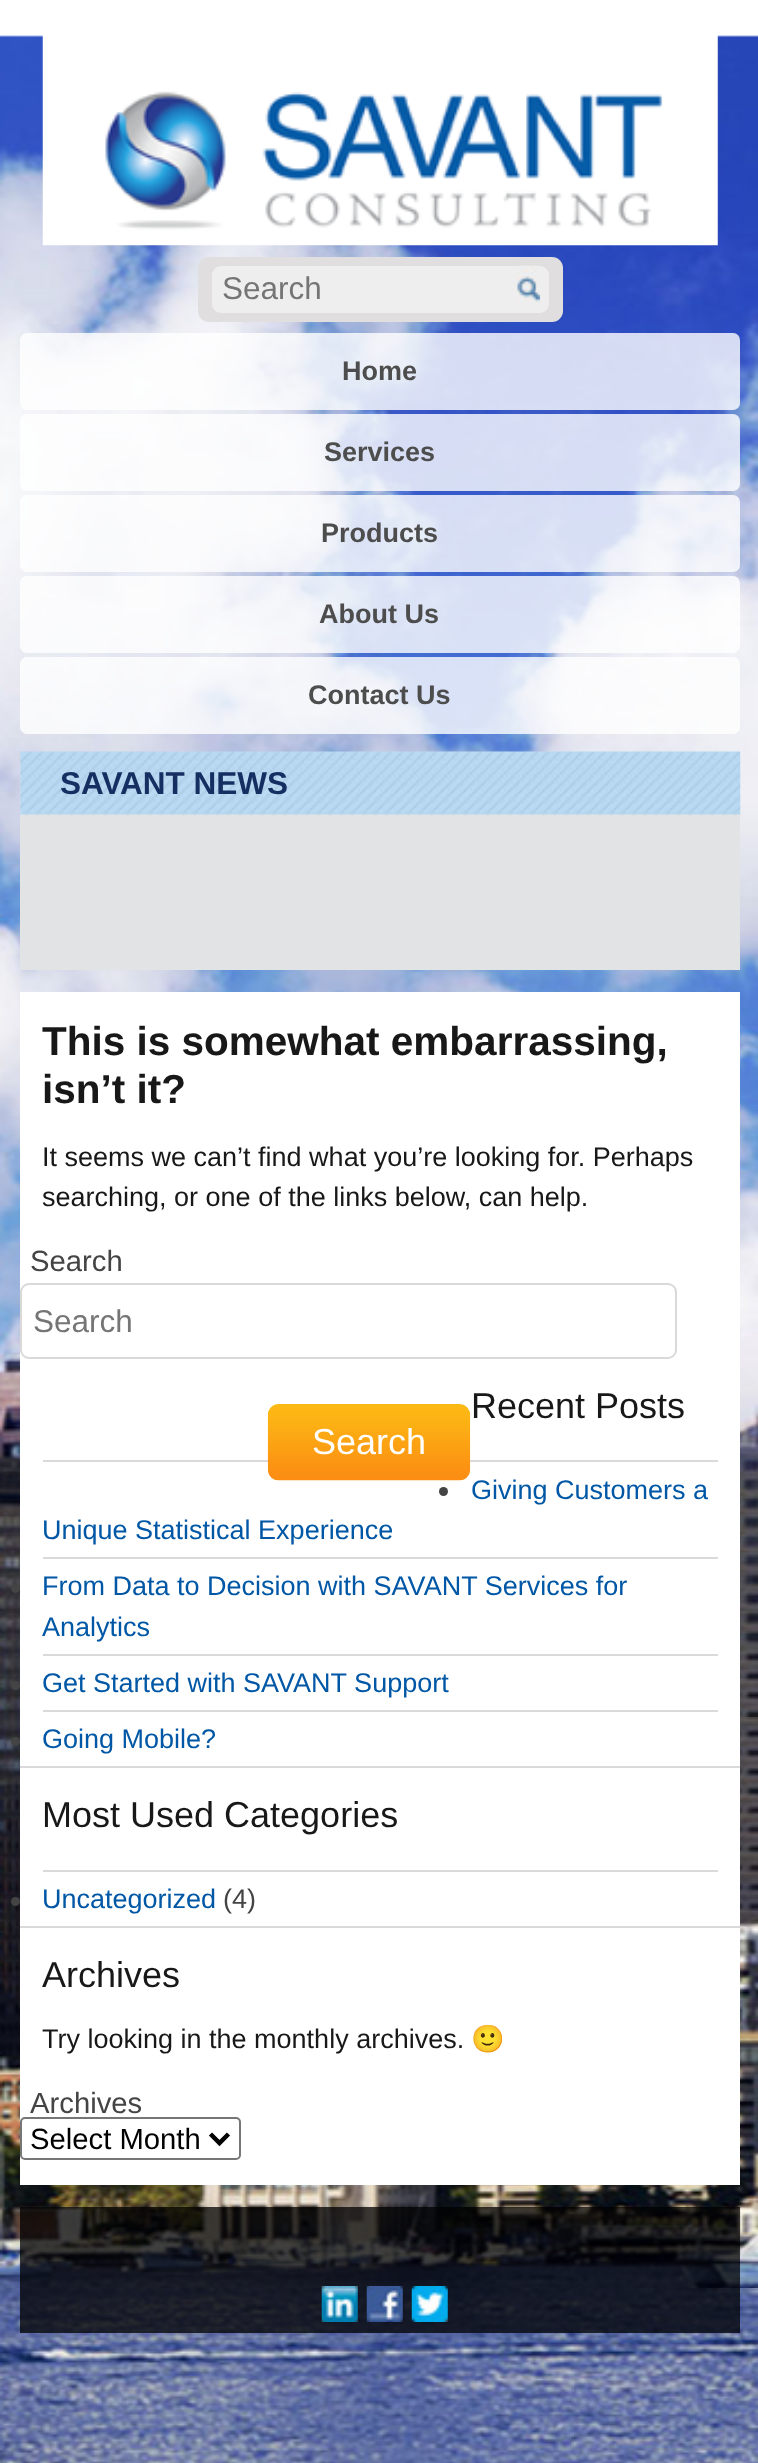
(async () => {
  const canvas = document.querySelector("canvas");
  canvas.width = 758;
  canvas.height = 2463;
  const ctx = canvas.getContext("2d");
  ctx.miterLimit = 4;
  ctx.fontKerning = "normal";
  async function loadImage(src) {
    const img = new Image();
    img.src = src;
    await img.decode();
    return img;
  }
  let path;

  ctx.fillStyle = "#ffffff";
  ctx.fillRect(0, 0, 758, 2463);
  ctx.drawImage(await loadImage("img/1.png"), 0, 35, 758, 2428);
  ctx.drawImage(await loadImage("img/2.png"), 42, 35, 676, 211);
  ctx.fillStyle = "#e0dede";
  ctx.beginPath();
  ctx.roundRect(198, 257, 365, 65, 11);
  ctx.fill();
  ctx.fillStyle = "#efeeee";
  ctx.beginPath();
  ctx.roundRect(212, 266, 297, 47, [9, 0, 0, 9]);
  ctx.fill();
  ctx.beginPath();
  ctx.roundRect(509, 266, 40, 47, [0, 9, 9, 0]);
  ctx.fill();
  ctx.drawImage(await loadImage("img/3.png"), 517, 265, 23, 37);
  ctx.fillStyle = "rgba(255, 255, 255, 0.8)";
  ctx.beginPath();
  ctx.roundRect(20, 333, 720, 77, 7);
  ctx.fill();
  ctx.beginPath();
  ctx.roundRect(20, 414, 720, 77, 7);
  ctx.fill();
  ctx.beginPath();
  ctx.roundRect(20, 495, 720, 77, 7);
  ctx.fill();
  ctx.beginPath();
  ctx.roundRect(20, 576, 720, 77, 7);
  ctx.fill();
  ctx.beginPath();
  ctx.roundRect(20, 657, 720, 77, 7);
  ctx.fill();
  ctx.fillStyle = "#e2e3e4";
  ctx.fillRect(20, 752, 720, 218);
  ctx.drawImage(await loadImage("img/4.png"), 20, 751, 721, 65);
  ctx.fillStyle = "#ffffff";
  ctx.fillRect(20, 992, 720, 1193);
  ctx.beginPath();
  ctx.roundRect(21, 1284, 655, 74, 8);
  ctx.strokeStyle = "#dbd8d8";
  ctx.lineWidth = 2;
  ctx.stroke();
  ctx.fillStyle = "#dbd9d9";
  ctx.fillRect(43, 1460, 675, 2);
  ctx.drawImage(await loadImage("img/5.png"), 267, 1404, 204, 77);
  ctx.fillRect(20, 1766, 720, 2);
  ctx.fillStyle = "#444444";
  ctx.beginPath();
  ctx.arc(443.5, 1491.5, 4.5, 0, Math.PI * 2);
  ctx.fill();
  ctx.fillStyle = "#dbd9d9";
  ctx.fillRect(43, 1557, 675, 2);
  ctx.fillStyle = "#444444";
  ctx.beginPath();
  ctx.arc(15.5, 1588.5, 4.5, 0, Math.PI * 2);
  ctx.fill();
  ctx.fillStyle = "#dbd9d9";
  ctx.fillRect(43, 1654, 675, 2);
  ctx.fillStyle = "#444444";
  ctx.beginPath();
  ctx.arc(15.5, 1685.5, 4.5, 0, Math.PI * 2);
  ctx.fill();
  ctx.fillStyle = "#dbd9d9";
  ctx.fillRect(43, 1710, 675, 2);
  ctx.fillStyle = "#444444";
  ctx.beginPath();
  ctx.arc(15.5, 1741.5, 4.5, 0, Math.PI * 2);
  ctx.fill();
  ctx.fillStyle = "#dbd9d9";
  ctx.fillRect(20, 1926, 720, 2);
  ctx.fillRect(43, 1870, 675, 2);
  ctx.fillStyle = "#444444";
  ctx.beginPath();
  ctx.arc(15.5, 1901.5, 4.5, 0, Math.PI * 2);
  ctx.fill();
  ctx.beginPath();
  ctx.roundRect(21, 2118, 219, 41, 4);
  ctx.strokeStyle = "#767676";
  ctx.stroke();
  path = new Path2D("M210.5 2134L219.5 2143L228.5 2134");
  ctx.strokeStyle = "#000000";
  ctx.lineWidth = 4.5;
  ctx.stroke(path);
  ctx.fillStyle = "rgba(0, 0, 0, 0.75)";
  ctx.fillRect(20, 2207, 720, 126);
  ctx.drawImage(await loadImage("img/6.png"), 321, 2286, 37, 36);
  ctx.drawImage(await loadImage("img/7.png"), 366, 2286, 37, 36);
  ctx.drawImage(await loadImage("img/8.png"), 411, 2286, 37, 36);
  ctx.font = "31.5px Liberation Sans";
  ctx.fillStyle = "#757575";
  ctx.fillText("Search", 222, 299);
  ctx.font = "bold 27px Liberation Sans";
  ctx.fillStyle = "#4d4d4d";
  for (const [text, x, y] of [
    ["Home", 342, 380],
    ["Services", 324, 461],
    ["Products", 321, 542],
    ["About Us", 319, 623],
    ["Contact Us", 308, 704],
  ]) {
    ctx.fillText(text, x, y);
  }
  ctx.font = "bold 31.5px Liberation Sans";
  ctx.fillStyle = "#162f62";
  ctx.fillText("SAVANT NEWS", 60, 794);
  ctx.font = "bold 40.5px Liberation Sans";
  ctx.fillStyle = "#181818";
  ctx.fillText("This is somewhat embarrassing,", 42, 1055);
  ctx.fillText("isn’t it?", 42, 1103);
  ctx.font = "27px Liberation Sans";
  ctx.fillText("It seems we can’t find what you’re looking for. Perhaps", 42, 1166);
  ctx.fillText("searching, or one of the links below, can help.", 42, 1206);
  ctx.font = "29.25px Liberation Sans";
  ctx.fillStyle = "#444444";
  ctx.fillText("Search", 30, 1271);
  ctx.font = "31.5px Liberation Sans";
  ctx.fillStyle = "#757575";
  ctx.fillText("Search", 33, 1332);
  ctx.font = "36px Liberation Sans";
  ctx.fillStyle = "#ffffff";
  ctx.fillText("Search", 312, 1454);
  ctx.fillStyle = "#181818";
  ctx.fillText("Recent Posts", 471, 1418);
  ctx.font = "27px Liberation Sans";
  ctx.fillStyle = "#0057a5";
  for (const [text, x, y] of [
    ["Giving Customers a", 471, 1499],
    ["Unique Statistical Experience", 42, 1539],
    ["From Data to Decision with SAVANT Services for", 42, 1595],
    ["Analytics", 42, 1636],
    ["Get Started with SAVANT Support", 42, 1692],
    ["Going Mobile?", 42, 1748],
  ]) {
    ctx.fillText(text, x, y);
  }
  ctx.font = "36px Liberation Sans";
  ctx.fillStyle = "#181818";
  ctx.fillText("Most Used Categories", 42, 1827);
  ctx.font = "27px Liberation Sans";
  ctx.fillStyle = "#0057a5";
  ctx.fillText("Uncategorized", 42, 1908);
  ctx.fillStyle = "#444444";
  ctx.fillText("(4)", 223, 1908);
  ctx.font = "36px Liberation Sans";
  ctx.fillStyle = "#181818";
  ctx.fillText("Archives", 42, 1987);
  ctx.font = "27px Liberation Sans";
  ctx.fillText("Try looking in the monthly archives.", 42, 2048);
  ctx.font = "27px Noto Color Emoji";
  ctx.fillText("🙂", 471, 2048);
  ctx.font = "29.25px Liberation Sans";
  ctx.fillStyle = "#444444";
  ctx.fillText("Archives", 30, 2113);
  ctx.fillStyle = "#000000";
  ctx.fillText("Select Month", 30, 2149);
})();
